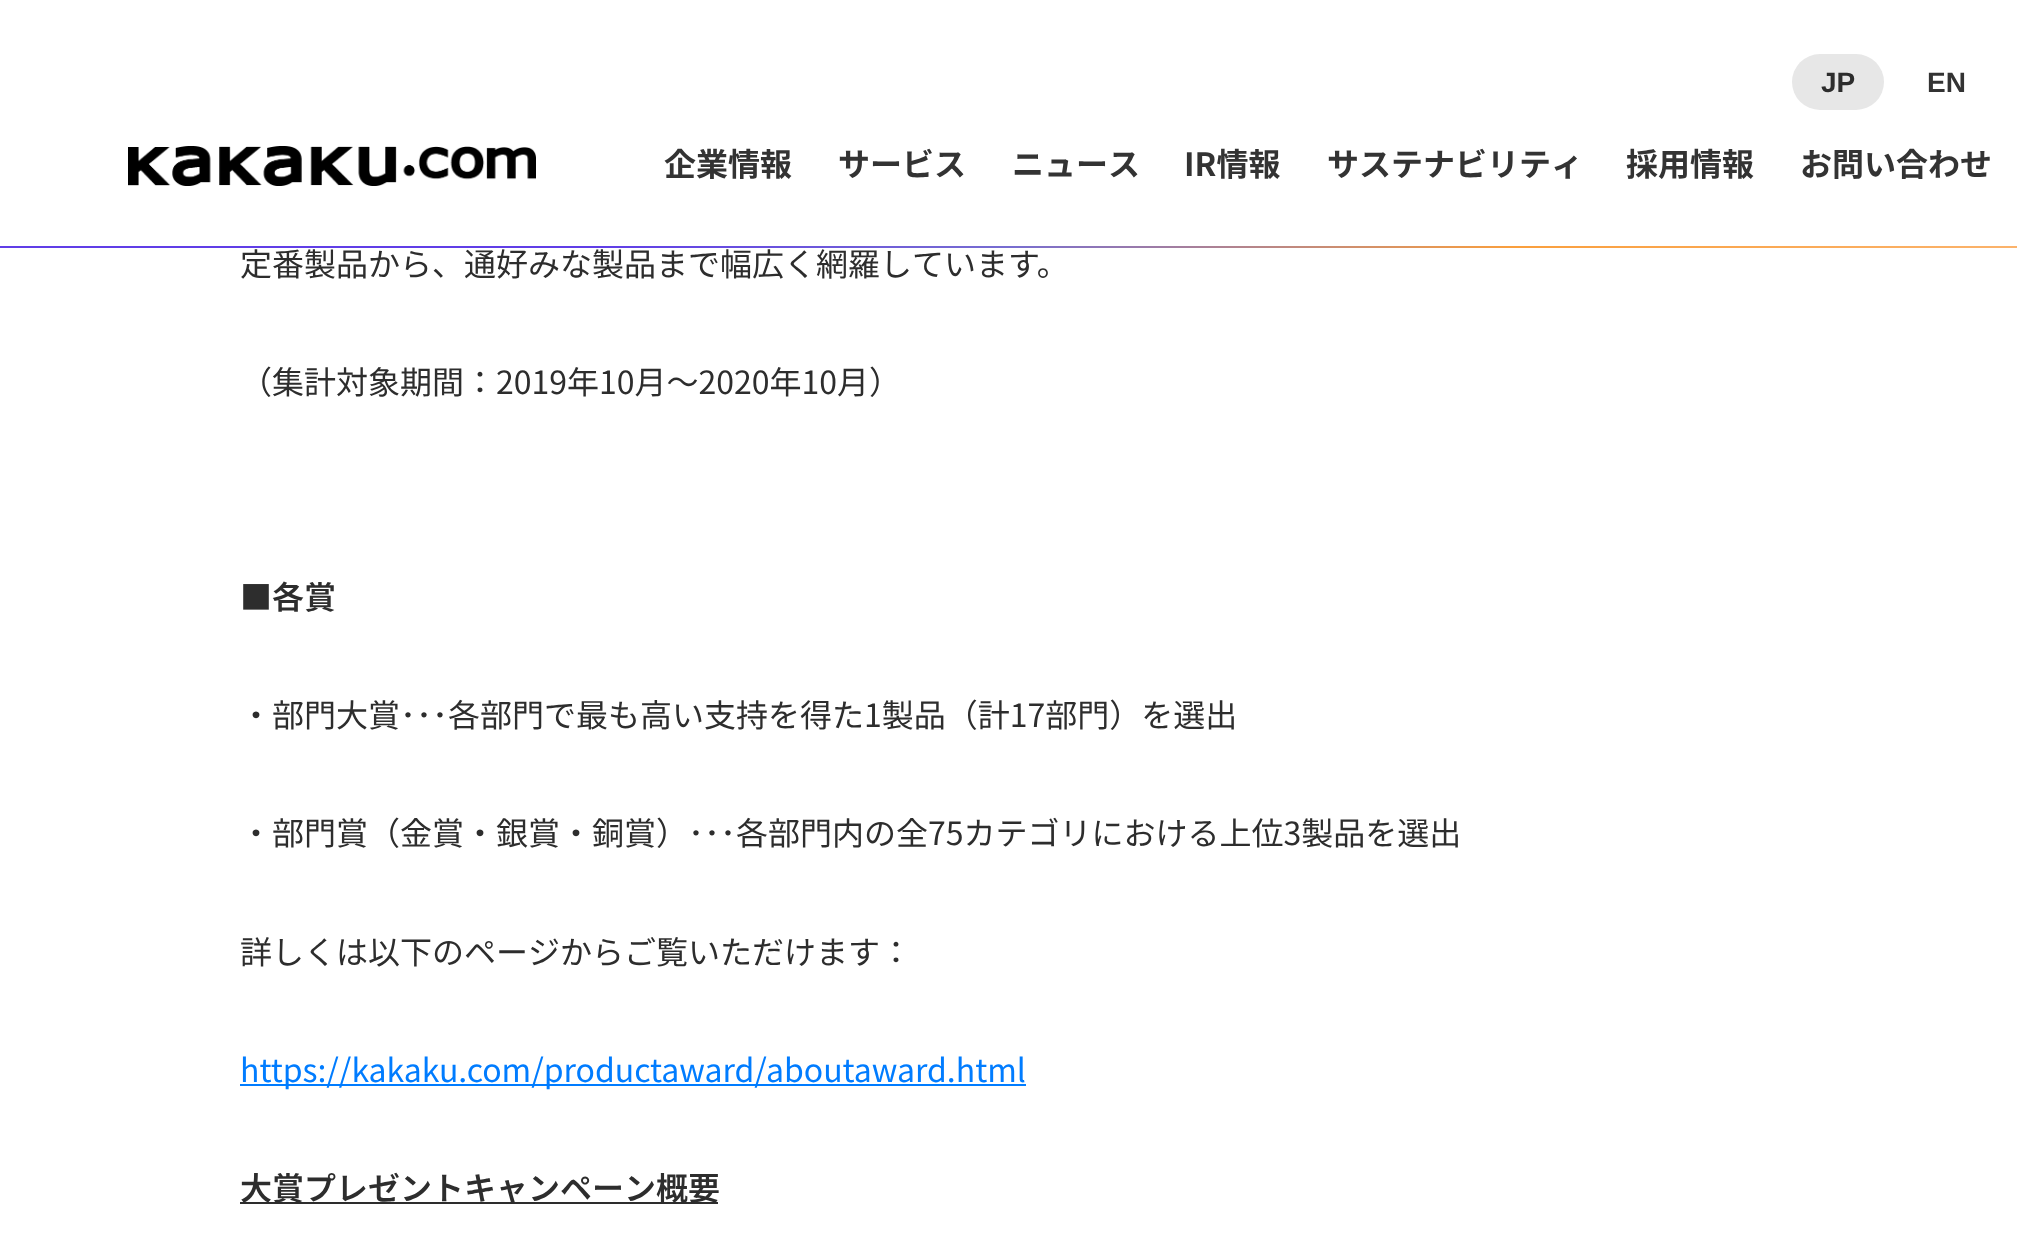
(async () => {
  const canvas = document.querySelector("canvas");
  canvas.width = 2017;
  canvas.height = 1258;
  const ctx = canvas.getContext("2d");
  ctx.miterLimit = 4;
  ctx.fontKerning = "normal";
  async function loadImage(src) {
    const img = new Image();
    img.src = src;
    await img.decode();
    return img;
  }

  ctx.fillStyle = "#ffffff";
  ctx.fillRect(0, 0, 2017, 1258);
  ctx.drawImage(await loadImage("img/1.png"), 0, 246, 2017, 2);
  ctx.drawImage(await loadImage("img/2.png"), 128, 146, 408, 40);
  ctx.fillStyle = "#e7e7e7";
  ctx.beginPath();
  ctx.roundRect(1792, 54, 92, 56, 28);
  ctx.fill();
  ctx.fillStyle = "#007cff";
  ctx.fillRect(240, 1084, 786, 2);
  ctx.fillStyle = "#2d2d2d";
  ctx.fillRect(240, 1202, 478, 2);
  ctx.font = "bold 28px Liberation Sans";
  ctx.fillText("JP", 1821, 92);
  ctx.fillStyle = "#333333";
  ctx.fillText("EN", 1927, 92);
  ctx.font = "bold 32px Noto Sans JP";
  for (const [text, x, y] of [
    ["企業情報", 664, 176],
    ["サービス", 838, 176],
    ["ニュース", 1012, 176],
    ["IR情報", 1184, 176],
    ["サステナビリティ", 1327, 176],
    ["採用情報", 1626, 176],
    ["お問い合わせ", 1800, 176],
  ]) {
    ctx.fillText(text, x, y);
  }
  ctx.font = "32px Noto Sans JP";
  ctx.fillStyle = "#2d2d2d";
  ctx.fillText("定番製品から、通好みな製品まで幅広く網羅しています。", 240, 276);
  ctx.fillText("（集計対象期間：2019年10月～2020年10月）", 240, 394);
  ctx.font = "600 32px Noto Sans JP";
  ctx.fillText("■各賞", 240, 609);
  ctx.font = "32px Noto Sans JP";
  for (const [text, x, y] of [
    ["・部門大賞･･･各部門で最も高い支持を得た1製品（計17部門）を選出", 240, 727],
    ["・部門賞（金賞・銀賞・銅賞）･･･各部門内の全75カテゴリにおける上位3製品を選出", 240, 845],
    ["詳しくは以下のページからご覧いただけます：", 240, 964],
  ]) {
    ctx.fillText(text, x, y);
  }
  ctx.fillStyle = "#007cff";
  ctx.fillText("https://kakaku.com/productaward/aboutaward.html", 240, 1082);
  ctx.font = "600 32px Noto Sans JP";
  ctx.fillStyle = "#2d2d2d";
  ctx.fillText("大賞プレゼントキャンペーン概要", 240, 1200);
})();
